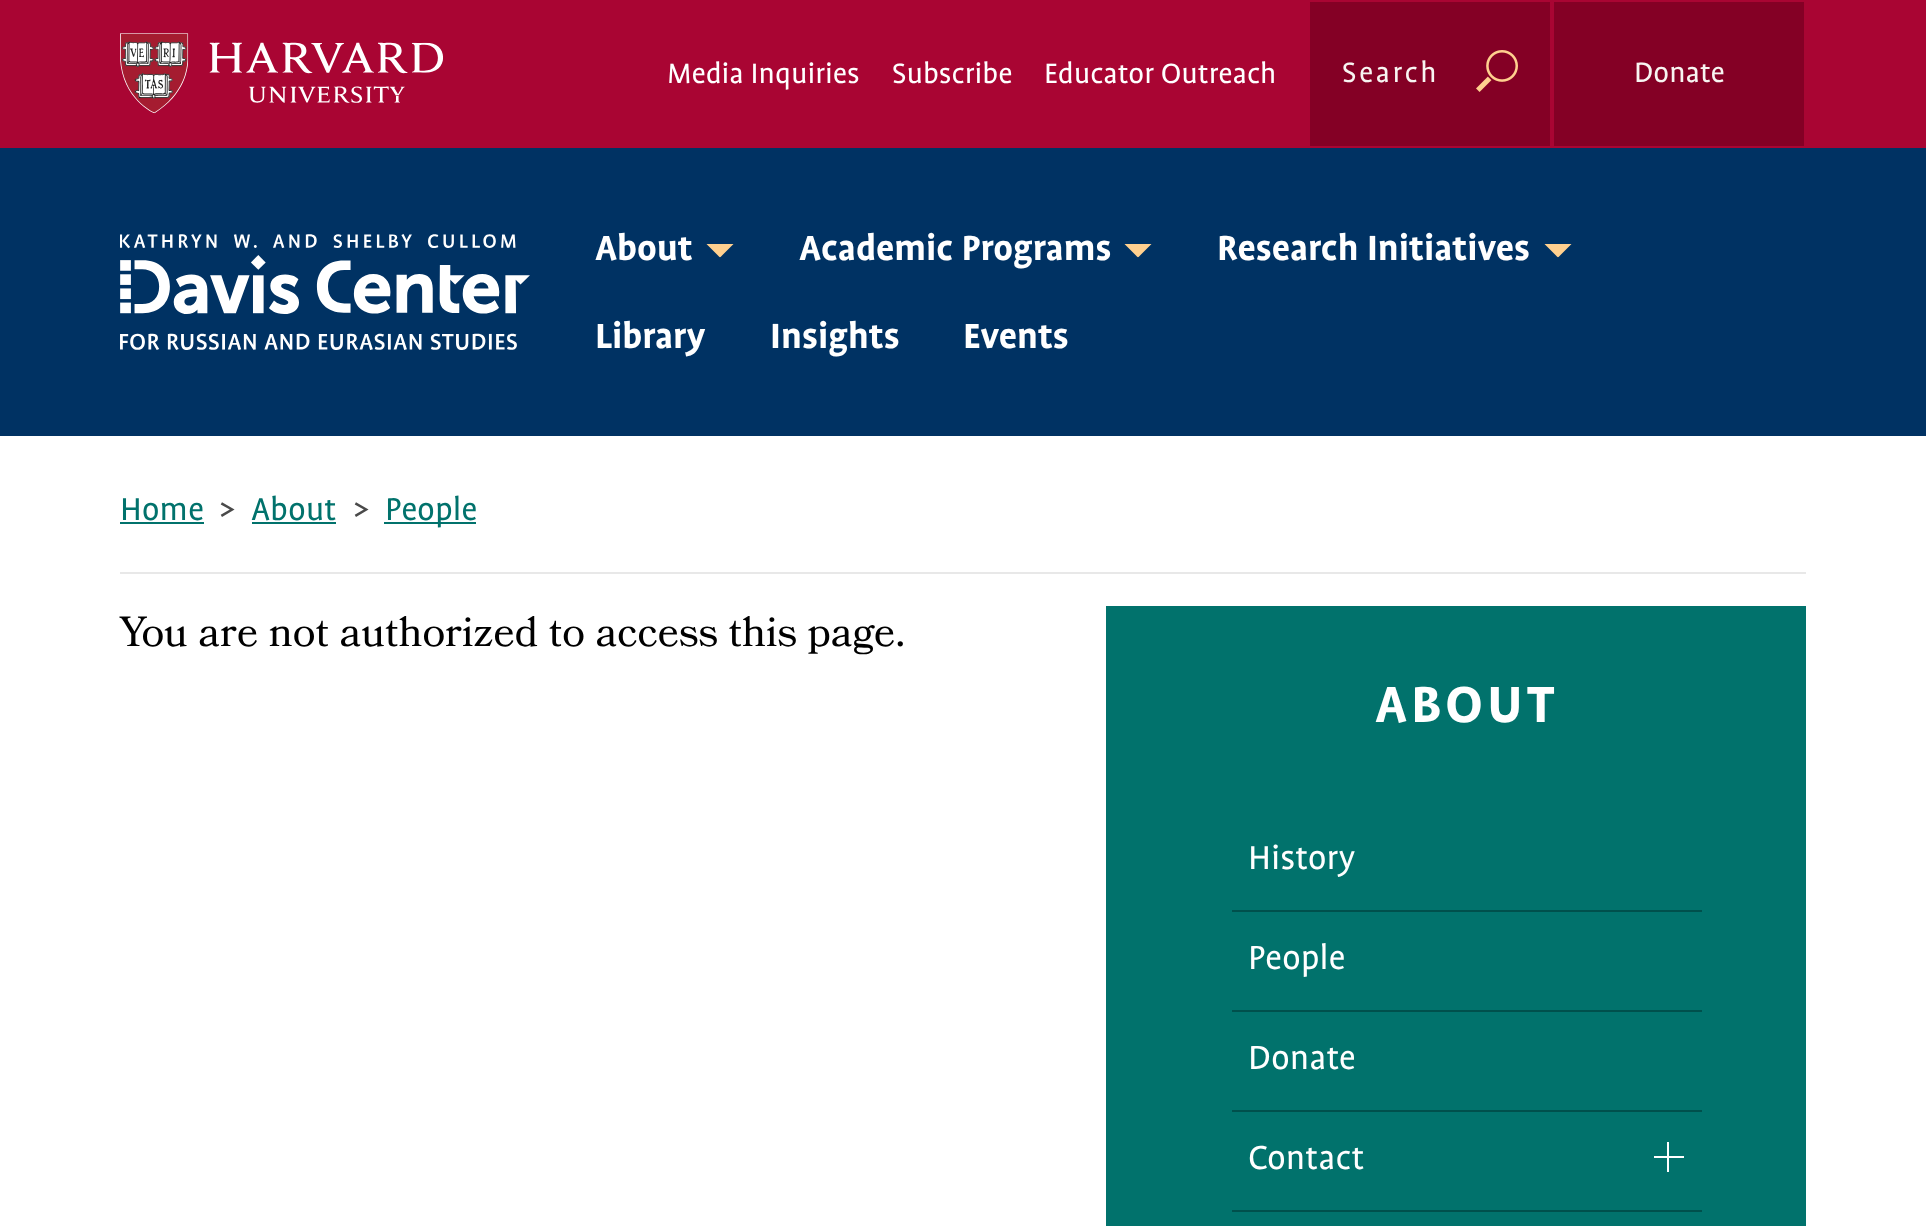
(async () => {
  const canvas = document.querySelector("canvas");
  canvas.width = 1926;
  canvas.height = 1226;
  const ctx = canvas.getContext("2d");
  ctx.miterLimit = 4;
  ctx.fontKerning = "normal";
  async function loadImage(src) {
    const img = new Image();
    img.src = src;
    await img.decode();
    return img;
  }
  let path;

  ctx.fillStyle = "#ffffff";
  ctx.fillRect(0, 0, 1926, 1226);
  ctx.fillStyle = "#a90533";
  ctx.fillRect(0, 0, 1926, 148);
  ctx.drawImage(await loadImage("img/1.png"), 120, 33, 323, 81);
  ctx.fillStyle = "#840025";
  ctx.fillRect(1310, 2, 240, 144);
  ctx.drawImage(await loadImage("img/2.png"), 1476, 50, 42, 42);
  ctx.fillRect(1554, 2, 250, 144);
  ctx.fillStyle = "#003263";
  ctx.fillRect(0, 148, 1926, 288);
  ctx.drawImage(await loadImage("img/3.png"), 120, 234, 410, 116);
  ctx.save();
  ctx.beginPath();
  ctx.rect(706, 244, 28, 14);
  ctx.clip();
  ctx.fillStyle = "#ffd08f";
  path = new Path2D("M706.5 243C706 243 706 243.5 706 243.5L717.5 255C720.5 258 719.5 258 722.5 255L734 243.5V243Z");
  ctx.fill(path, "evenodd");
  ctx.restore();
  ctx.save();
  ctx.beginPath();
  ctx.rect(1124, 244, 28, 14);
  ctx.clip();
  ctx.fillStyle = "#ffd08f";
  path = new Path2D("M1124.5 243C1124 243 1124 243.5 1124 243.5L1135.5 255C1138.5 258 1137.5 258 1140.5 255L1152 243.5V243Z");
  ctx.fill(path, "evenodd");
  ctx.restore();
  ctx.save();
  ctx.beginPath();
  ctx.rect(1544, 244, 28, 14);
  ctx.clip();
  ctx.fillStyle = "#ffd08f";
  path = new Path2D("M1544.5 243C1544 243 1544 243.5 1544 243.5L1555.5 255C1558.5 258 1557.5 258 1560.5 255L1572 243.5V243Z");
  ctx.fill(path, "evenodd");
  ctx.restore();
  for (const [x, y, w, h, color] of [
    [120, 572, 1686, 2, "#e8e8e8"],
    [120, 522, 84, 2, "#01726c"],
    [252, 522, 84, 2, "#01726c"],
    [384, 522, 92, 2, "#01726c"],
    [1106, 606, 700, 620, "#01726c"],
    [1232, 910, 470, 2, "#00504c"],
    [1232, 1010, 470, 2, "#00504c"],
    [1232, 1110, 470, 2, "#00504c"],
    [1232, 1210, 470, 2, "#00504c"],
    [1654, 1156, 30, 2, "#ffffff"],
    [1667, 1142, 2, 30, "#ffffff"],
  ]) {
    ctx.fillStyle = color;
    ctx.fillRect(x, y, w, h);
  }
  ctx.font = "32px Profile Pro";
  for (const [text, x, y] of [
    ["Media Inquiries", 667, 83],
    ["Subscribe", 892, 83],
    ["Educator Outreach", 1044, 83],
  ]) {
    ctx.fillText(text, x, y);
  }
  ctx.letterSpacing = "2.5px";
  ctx.fillStyle = "#f8f5f2";
  ctx.fillText("Search", 1342, 82);
  ctx.letterSpacing = "0px";
  ctx.fillText("Donate", 1634, 82);
  ctx.font = "bold 40px Profile Pro";
  ctx.fillStyle = "#ffffff";
  for (const [text, x, y] of [
    ["About", 595, 260],
    ["Academic Programs", 799, 260],
    ["Research Initiatives", 1217, 260],
    ["Library", 595, 348],
    ["Insights", 770, 348],
    ["Events", 963, 348],
  ]) {
    ctx.fillText(text, x, y);
  }
  ctx.font = "36px Profile Pro";
  ctx.fillStyle = "#01726c";
  ctx.fillText("Home", 120, 520);
  ctx.fillStyle = "#4a4a4a";
  ctx.fillText(">", 219, 520);
  ctx.fillStyle = "#01726c";
  ctx.fillText("About", 251, 520);
  ctx.fillStyle = "#4a4a4a";
  ctx.fillText(">", 353, 520);
  ctx.fillStyle = "#01726c";
  ctx.fillText("People", 385, 520);
  ctx.font = "42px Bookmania";
  ctx.fillStyle = "#000000";
  ctx.fillText("You are not authorized to access this page.", 120, 646);
  ctx.letterSpacing = "4.25px";
  ctx.font = "bold 58px Profile Pro";
  ctx.fillStyle = "#ffffff";
  ctx.fillText("ABOUT", 1375, 722);
  ctx.letterSpacing = "0px";
  ctx.font = "38px Profile Pro";
  for (const [text, x, y] of [
    ["History", 1248, 869],
    ["People", 1248, 969],
    ["Donate", 1248, 1069],
    ["Contact", 1248, 1169],
  ]) {
    ctx.fillText(text, x, y);
  }
})();
